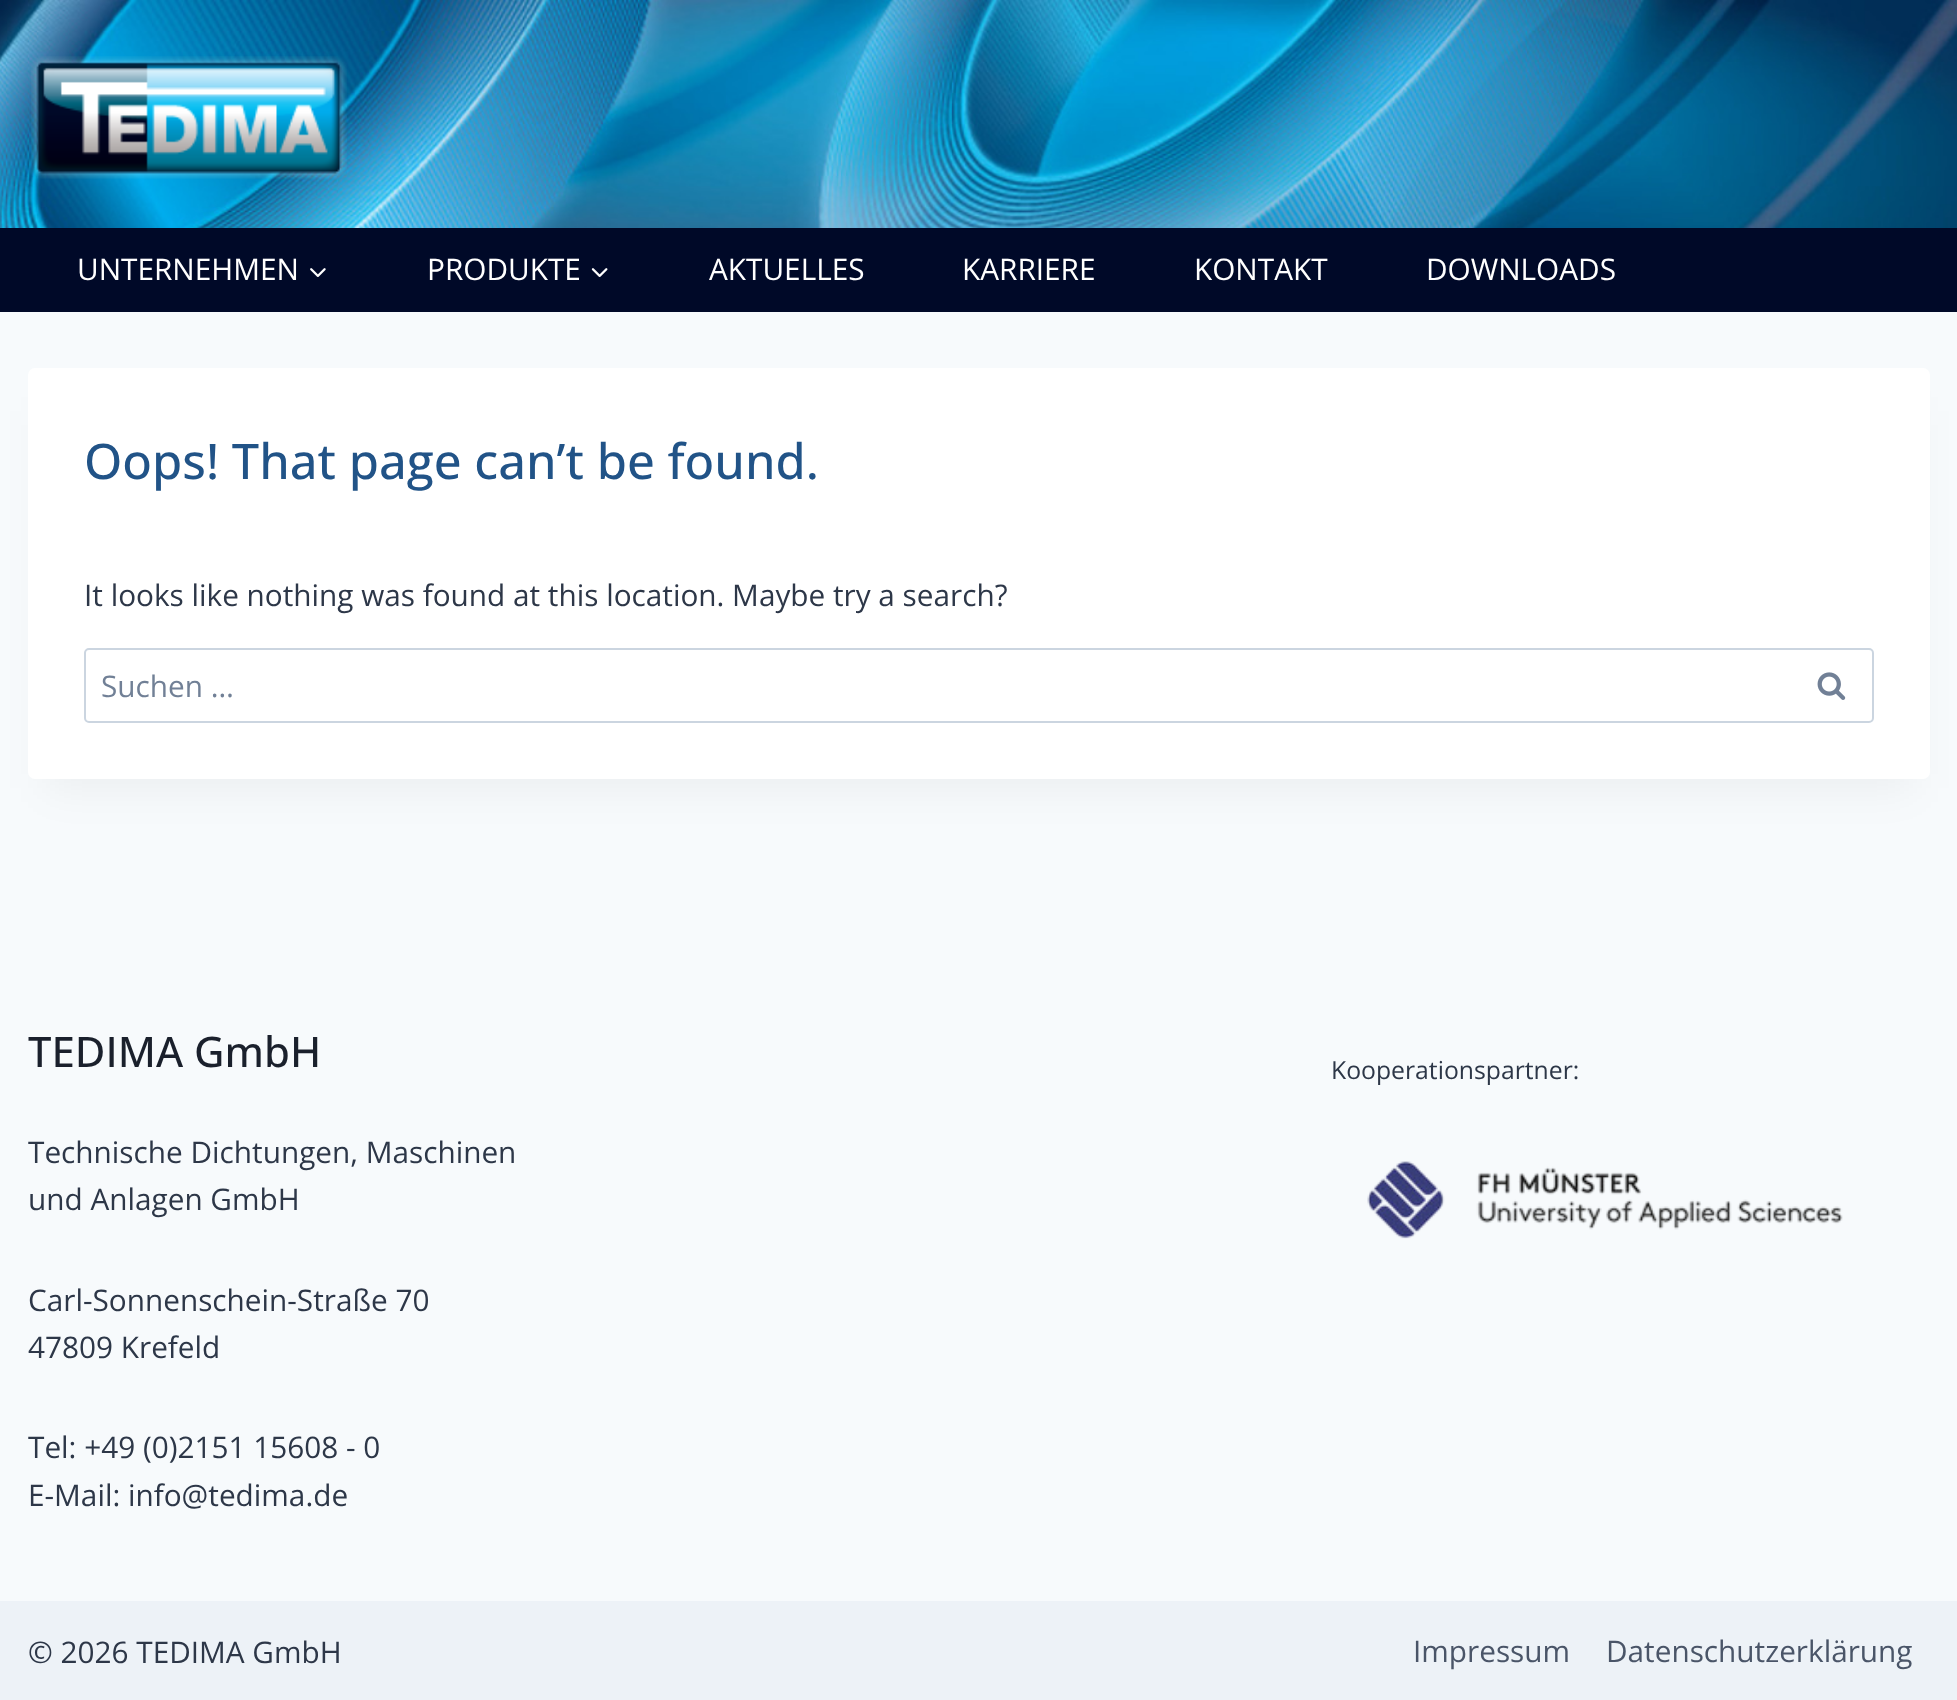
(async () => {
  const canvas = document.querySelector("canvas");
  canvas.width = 1957;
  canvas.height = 1700;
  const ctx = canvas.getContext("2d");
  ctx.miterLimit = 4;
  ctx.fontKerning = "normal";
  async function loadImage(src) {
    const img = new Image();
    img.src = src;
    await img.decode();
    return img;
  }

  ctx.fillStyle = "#f7fafc";
  ctx.fillRect(0, 0, 1957, 1700);
  ctx.drawImage(await loadImage("img/1.png"), 0, 0, 1957, 228);
  ctx.drawImage(await loadImage("img/2.png"), 31, 56, 316, 123);
  ctx.fillStyle = "#000928";
  ctx.fillRect(0, 228, 1957, 84);
  ctx.drawImage(await loadImage("img/3.png"), 310, 268, 16, 9);
  ctx.drawImage(await loadImage("img/4.png"), 591, 268, 17, 9);
  ctx.fillStyle = "rgba(0, 0, 0, 0.05)";
  ctx.filter = "blur(22px)";
  ctx.beginPath();
  ctx.rect(46, 411, 1867, 377);
  ctx.fill();
  ctx.filter = "none";
  ctx.fillStyle = "#ffffff";
  ctx.beginPath();
  ctx.roundRect(28, 368, 1902, 411, 7);
  ctx.fill();
  ctx.beginPath();
  ctx.roundRect(85, 649, 1788, 73, 4);
  ctx.strokeStyle = "#cbd5e0";
  ctx.lineWidth = 2;
  ctx.stroke();
  ctx.drawImage(await loadImage("img/5.png"), 1817, 672, 29, 28);
  ctx.drawImage(await loadImage("img/6.png"), 1367, 1161, 476, 78);
  ctx.fillStyle = "#edf2f7";
  ctx.fillRect(0, 1601, 1957, 99);
  ctx.font = "29.75px Open Sans";
  ctx.fillStyle = "#ffffff";
  for (const [text, x, y] of [
    ["UNTERNEHMEN", 77, 280],
    ["PRODUKTE", 427, 280],
    ["AKTUELLES", 709, 280],
    ["KARRIERE", 962, 280],
    ["KONTAKT", 1194, 280],
    ["DOWNLOADS", 1426, 280],
  ]) {
    ctx.fillText(text, x, y);
  }
  ctx.font = "500 49px Open Sans";
  ctx.fillStyle = "#215387";
  ctx.fillText("Oops! That page can’t be found.", 84, 479);
  ctx.font = "29.75px Open Sans";
  ctx.fillStyle = "#2d3748";
  ctx.fillText("It looks like nothing was found at this location. Maybe try a search?", 84, 606);
  ctx.fillStyle = "#718096";
  ctx.fillText("Suchen …", 101, 697);
  ctx.font = "500 42px Open Sans";
  ctx.fillStyle = "#1a202c";
  ctx.fillText("TEDIMA GmbH", 28, 1067);
  ctx.font = "29.75px Open Sans";
  ctx.fillStyle = "#2d3748";
  for (const [text, x, y] of [
    ["Technische Dichtungen, Maschinen", 28, 1163],
    ["und Anlagen GmbH", 28, 1210],
    ["Carl-Sonnenschein-Straße 70", 28, 1311],
    ["47809 Krefeld", 28, 1358],
    ["Tel: +49 (0)2151 15608 - 0", 28, 1458],
    ["E-Mail: info@tedima.de", 28, 1506],
  ]) {
    ctx.fillText(text, x, y);
  }
  ctx.font = "24.75px Open Sans";
  ctx.fillText("Kooperationspartner:", 1331, 1079);
  ctx.font = "29.75px Open Sans";
  ctx.fillText("© 2026 TEDIMA GmbH", 28, 1663);
  ctx.fillStyle = "#4a5568";
  ctx.fillText("Impressum", 1413, 1662);
  ctx.fillText("Datenschutzerklärung", 1606, 1662);
})();
